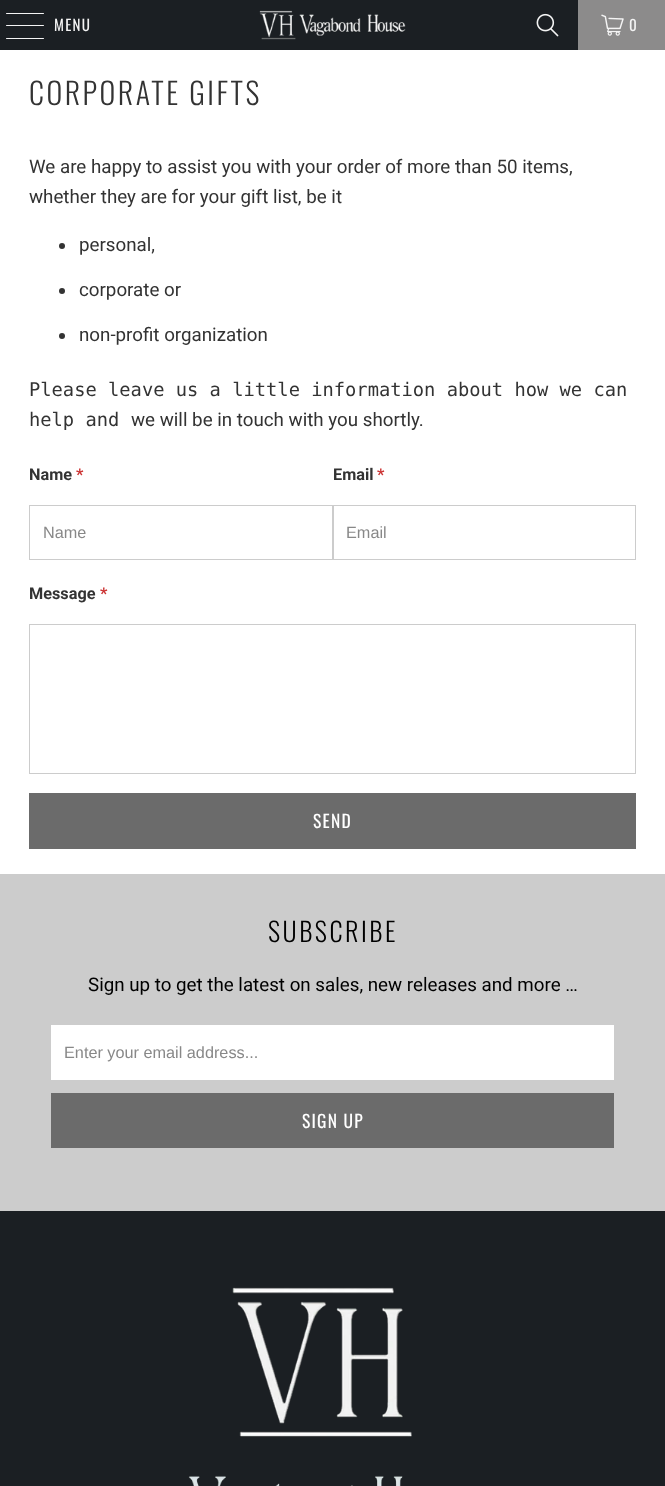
(async () => {
  const canvas = document.querySelector("canvas");
  canvas.width = 665;
  canvas.height = 1486;
  const ctx = canvas.getContext("2d");
  ctx.miterLimit = 4;
  ctx.fontKerning = "normal";
  async function loadImage(src) {
    const img = new Image();
    img.src = src;
    await img.decode();
    return img;
  }

  ctx.fillStyle = "#ffffff";
  ctx.fillRect(0, 0, 665, 1486);
  ctx.fillStyle = "#1b1f23";
  ctx.fillRect(0, 0, 578, 50);
  ctx.fillStyle = "#f4f4f4";
  ctx.beginPath();
  ctx.roundRect(6, 13, 38, 1, 0.5);
  ctx.fill();
  ctx.beginPath();
  ctx.roundRect(6, 25, 38, 1, 0.5);
  ctx.fill();
  ctx.beginPath();
  ctx.roundRect(6, 38, 38, 1, 0.5);
  ctx.fill();
  ctx.drawImage(await loadImage("img/1.png"), 259, 10, 147, 30);
  ctx.drawImage(await loadImage("img/2.png"), 536, 13, 23, 24);
  ctx.fillStyle = "#8c8b8b";
  ctx.fillRect(578, 0, 87, 50);
  ctx.drawImage(await loadImage("img/3.png"), 601, 14, 23, 22);
  ctx.fillStyle = "#333333";
  ctx.beginPath();
  ctx.arc(62, 246, 3, 0, Math.PI * 2);
  ctx.fill();
  ctx.beginPath();
  ctx.arc(62, 291, 3, 0, Math.PI * 2);
  ctx.fill();
  ctx.beginPath();
  ctx.arc(62, 336, 3, 0, Math.PI * 2);
  ctx.fill();
  ctx.strokeStyle = "#cccccc";
  ctx.strokeRect(29.5, 505.5, 303, 54);
  ctx.strokeRect(333.5, 505.5, 302, 54);
  ctx.strokeRect(29.5, 624.5, 606, 149);
  for (const [x, y, w, h, color] of [
    [29, 793, 607, 56, "#6b6b6b"],
    [0, 874, 665, 337, "#cccccc"],
    [51, 1025, 563, 55, "#ffffff"],
    [51, 1093, 563, 55, "#6b6b6b"],
    [0, 1211, 665, 275, "#1b1f23"],
  ]) {
    ctx.fillStyle = color;
    ctx.fillRect(x, y, w, h);
  }
  ctx.drawImage(await loadImage("img/4.png"), 188, 1287, 224, 199);
  ctx.letterSpacing = "1.25px";
  ctx.font = "15px Oswald";
  ctx.fillStyle = "#f4f4f4";
  ctx.fillText("MENU", 54, 31);
  ctx.fillText("0", 629, 31);
  ctx.letterSpacing = "2.5px";
  ctx.font = "300 30px Oswald";
  ctx.fillStyle = "#333333";
  ctx.fillText("CORPORATE GIFTS", 29, 105);
  ctx.letterSpacing = "0px";
  ctx.font = "18.75px Roboto";
  for (const [text, x, y] of [
    ["We are happy to assist you with your order of more than 50 items,", 29, 173],
    ["whether they are for your gift list, be it", 29, 203],
    ["personal,", 79, 251],
    ["corporate or", 79, 296],
    ["non-profit organization", 79, 341],
  ]) {
    ctx.fillText(text, x, y);
  }
  ctx.font = "18.75px DejaVu Sans Mono";
  ctx.fillText("Please leave us a little information about how we can", 29, 396);
  ctx.fillText("help and", 29, 426);
  ctx.font = "18.75px Roboto";
  ctx.fillText("we will be in touch with you shortly.", 131, 426);
  ctx.font = "bold 16.25px Roboto";
  ctx.fillText("Name", 29, 480);
  ctx.fillStyle = "#cc3333";
  ctx.fillText("*", 76, 480);
  ctx.font = "16.25px Liberation Sans";
  ctx.fillStyle = "#888888";
  ctx.fillText("Name", 43, 538);
  ctx.font = "bold 16.25px Roboto";
  ctx.fillStyle = "#333333";
  ctx.fillText("Email", 333, 480);
  ctx.fillStyle = "#cc3333";
  ctx.fillText("*", 377, 480);
  ctx.font = "16.25px Liberation Sans";
  ctx.fillStyle = "#888888";
  ctx.fillText("Email", 346, 538);
  ctx.font = "bold 16.25px Roboto";
  ctx.fillStyle = "#333333";
  ctx.fillText("Message", 29, 599);
  ctx.fillStyle = "#cc3333";
  ctx.fillText("*", 100, 599);
  ctx.letterSpacing = "1.25px";
  ctx.font = "17.5px Oswald";
  ctx.fillStyle = "#ffffff";
  ctx.fillText("SEND", 313, 828);
  ctx.letterSpacing = "2.5px";
  ctx.font = "300 26.25px Oswald";
  ctx.fillStyle = "#000000";
  ctx.fillText("SUBSCRIBE", 268, 942);
  ctx.letterSpacing = "0px";
  ctx.font = "18.75px Roboto";
  ctx.fillText("Sign up to get the latest on sales, new releases and more …", 88, 991);
  ctx.font = "16.25px Liberation Sans";
  ctx.fillStyle = "#888888";
  ctx.fillText("Enter your email address...", 64, 1058);
  ctx.letterSpacing = "1.25px";
  ctx.font = "17.5px Oswald";
  ctx.fillStyle = "#ffffff";
  ctx.fillText("SIGN UP", 302, 1128);
})();
